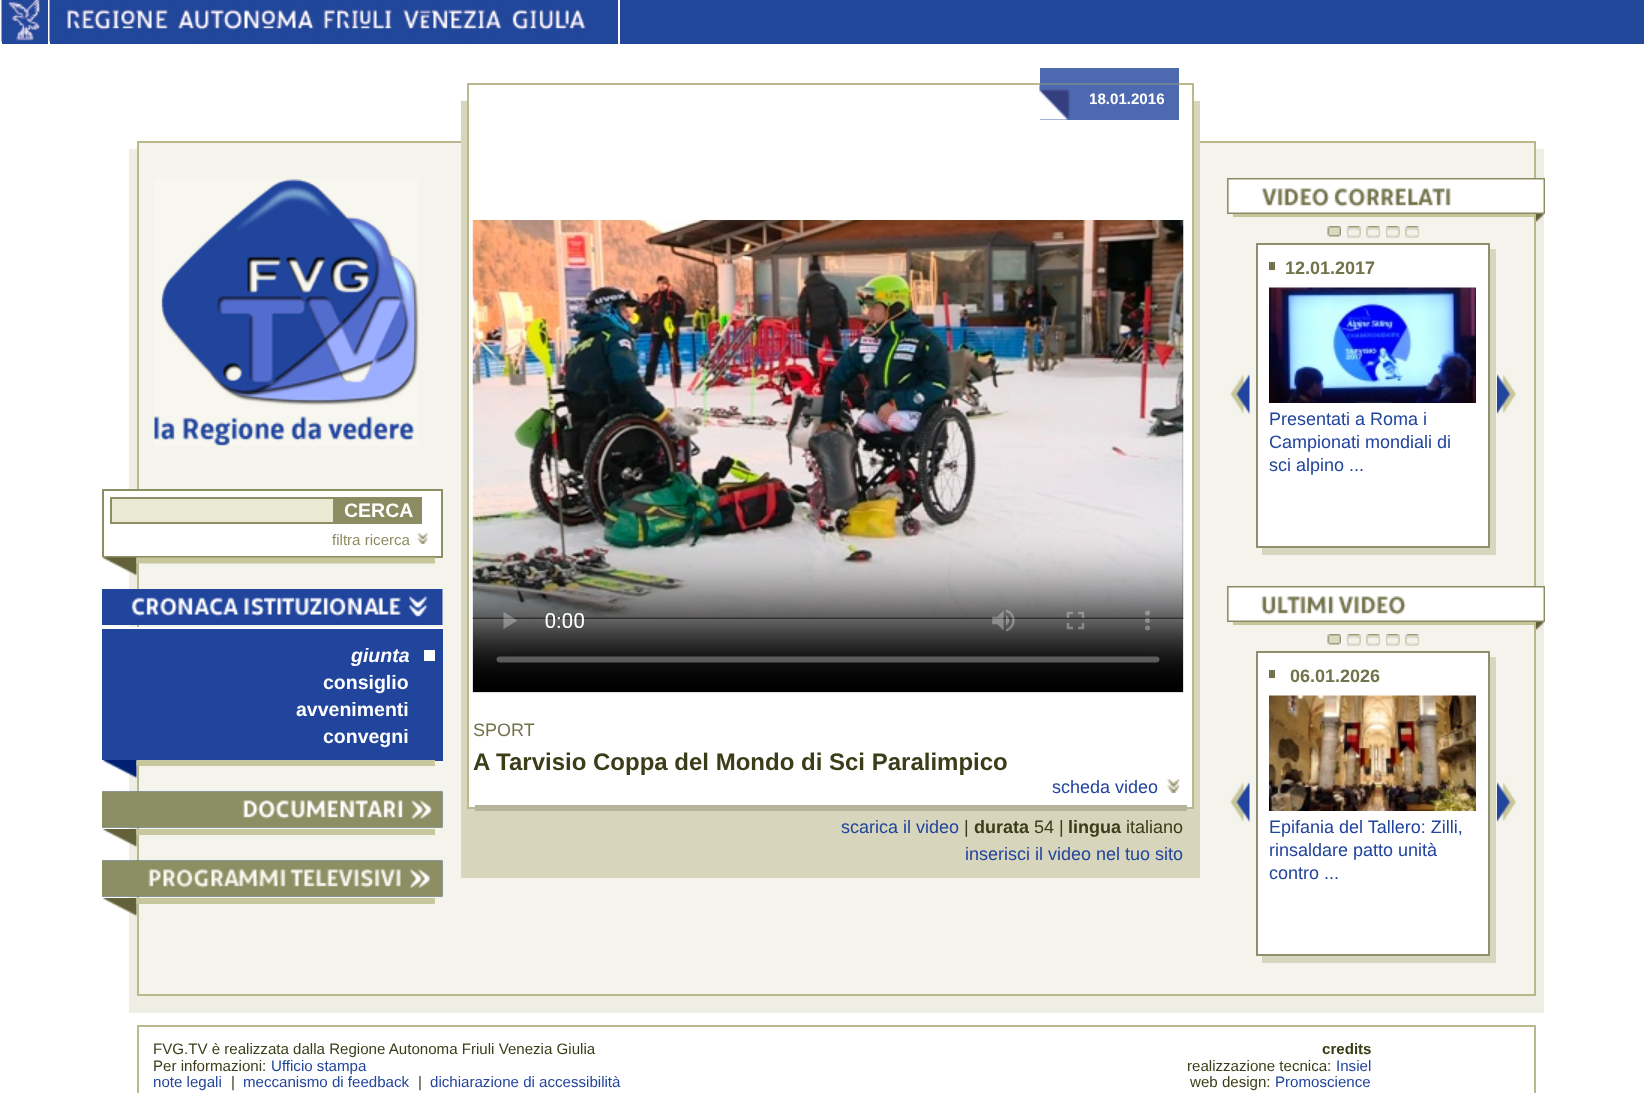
(async () => {
  const canvas = document.querySelector("canvas");
  canvas.width = 1644;
  canvas.height = 1093;
  const ctx = canvas.getContext("2d");
  ctx.miterLimit = 4;
  ctx.fontKerning = "normal";
  async function loadImage(src) {
    const img = new Image();
    img.src = src;
    await img.decode();
    return img;
  }

  ctx.fillStyle = "#ffffff";
  ctx.fillRect(0, 0, 1644, 1093);
  ctx.fillStyle = "#21479a";
  ctx.fillRect(2, 0, 1642, 44);
  ctx.fillStyle = "#ffffff";
  ctx.fillRect(48, 0, 2, 48);
  ctx.drawImage(await loadImage("img/1.png"), 1, 0, 40, 42);
  ctx.fillRect(618, 0, 2, 48);
  ctx.drawImage(await loadImage("img/2.png"), 49, 0, 537, 42);
  ctx.fillStyle = "#eeeee4";
  ctx.fillRect(129, 149, 1415, 864);
  ctx.fillStyle = "#f4f4ec";
  ctx.beginPath();
  ctx.rect(138, 142, 1397, 853);
  ctx.fill();
  ctx.strokeStyle = "#bab98e";
  ctx.lineWidth = 2;
  ctx.stroke();
  ctx.drawImage(await loadImage("img/3.png"), 154, 179, 265, 267);
  ctx.fillStyle = "#ffffff";
  ctx.fillRect(129, 491, 312, 65);
  ctx.strokeStyle = "#8c8e63";
  ctx.strokeRect(103, 490, 339, 67);
  ctx.fillStyle = "#e9e9d4";
  ctx.beginPath();
  ctx.rect(111, 498, 223, 25);
  ctx.fill();
  ctx.stroke();
  ctx.fillStyle = "#8c8c63";
  ctx.fillRect(335, 497, 87, 27);
  ctx.drawImage(await loadImage("img/4.png"), 417, 533, 11, 11);
  ctx.drawImage(await loadImage("img/5.png"), 102, 557, 35, 19);
  ctx.drawImage(await loadImage("img/6.png"), 136, 557, 299, 7);
  ctx.drawImage(await loadImage("img/7.png"), 102, 589, 341, 36);
  for (const [x, y, w, h, color] of [
    [102, 629, 341, 132, "#21449c"],
    [129, 627, 314, 2, "#ffffff"],
    [424, 650, 11, 11, "#ffffff"],
  ]) {
    ctx.fillStyle = color;
    ctx.fillRect(x, y, w, h);
  }
  ctx.drawImage(await loadImage("img/8.png"), 102, 760, 35, 18);
  ctx.drawImage(await loadImage("img/9.png"), 136, 760, 299, 6);
  ctx.drawImage(await loadImage("img/10.png"), 102, 791, 341, 37);
  ctx.drawImage(await loadImage("img/11.png"), 102, 791, 341, 37);
  ctx.drawImage(await loadImage("img/12.png"), 103, 829, 34, 18);
  ctx.drawImage(await loadImage("img/13.png"), 136, 829, 299, 6);
  ctx.drawImage(await loadImage("img/14.png"), 102, 860, 341, 37);
  ctx.drawImage(await loadImage("img/15.png"), 102, 860, 341, 37);
  ctx.drawImage(await loadImage("img/12.png"), 103, 898, 34, 18);
  ctx.drawImage(await loadImage("img/13.png"), 136, 898, 299, 6);
  ctx.fillStyle = "#d7d6bd";
  ctx.fillRect(461, 101, 739, 777);
  ctx.fillStyle = "#ffffff";
  ctx.fillRect(469, 101, 723, 706);
  ctx.strokeStyle = "#bab98e";
  ctx.strokeRect(468, 84, 725, 724);
  ctx.fillStyle = "#4d69b0";
  ctx.fillRect(1040, 68, 139, 52);
  ctx.fillStyle = "#70819a";
  ctx.fillRect(1040, 83, 139, 2);
  ctx.drawImage(await loadImage("img/16.png"), 1039, 85, 31, 35);
  ctx.drawImage(await loadImage("img/17.png"), 472, 220, 712, 473);
  ctx.drawImage(await loadImage("img/18.png"), 1167, 779, 12, 14);
  ctx.fillStyle = "#b6b59c";
  ctx.fillRect(475, 805, 712, 6);
  ctx.drawImage(await loadImage("img/19.png"), 1227, 178, 318, 36);
  ctx.fillStyle = "#c7c69b";
  ctx.fillRect(1233, 214, 302, 3);
  ctx.drawImage(await loadImage("img/20.png"), 1536, 214, 8, 8);
  ctx.drawImage(await loadImage("img/21.png"), 1327, 226, 14, 11);
  ctx.drawImage(await loadImage("img/22.png"), 1347, 226, 14, 11);
  ctx.drawImage(await loadImage("img/23.png"), 1347, 227, 14, 11);
  ctx.drawImage(await loadImage("img/24.png"), 1366, 226, 14, 11);
  ctx.drawImage(await loadImage("img/25.png"), 1366, 227, 14, 11);
  ctx.drawImage(await loadImage("img/26.png"), 1386, 226, 14, 11);
  ctx.drawImage(await loadImage("img/27.png"), 1386, 227, 14, 11);
  ctx.drawImage(await loadImage("img/24.png"), 1405, 226, 14, 11);
  ctx.drawImage(await loadImage("img/25.png"), 1405, 227, 14, 11);
  ctx.drawImage(await loadImage("img/28.png"), 1230, 374, 20, 40);
  ctx.fillStyle = "#d7d7bf";
  ctx.fillRect(1262, 249, 234, 306);
  ctx.fillStyle = "#ffffff";
  ctx.beginPath();
  ctx.rect(1257, 244, 232, 303);
  ctx.fill();
  ctx.strokeStyle = "#8f8f6e";
  ctx.stroke();
  ctx.fillStyle = "#72724b";
  ctx.fillRect(1269, 262, 6, 8);
  ctx.drawImage(await loadImage("img/29.png"), 1269, 287, 207, 116);
  ctx.drawImage(await loadImage("img/30.png"), 1497, 374, 20, 40);
  ctx.drawImage(await loadImage("img/31.png"), 1227, 586, 318, 36);
  ctx.fillStyle = "#c7c69b";
  ctx.fillRect(1233, 622, 302, 3);
  ctx.drawImage(await loadImage("img/20.png"), 1536, 622, 8, 8);
  ctx.drawImage(await loadImage("img/24.png"), 1327, 634, 14, 11);
  ctx.drawImage(await loadImage("img/22.png"), 1347, 634, 14, 11);
  ctx.drawImage(await loadImage("img/23.png"), 1347, 635, 14, 11);
  ctx.drawImage(await loadImage("img/24.png"), 1366, 634, 14, 11);
  ctx.drawImage(await loadImage("img/25.png"), 1366, 635, 14, 11);
  ctx.drawImage(await loadImage("img/26.png"), 1386, 634, 14, 11);
  ctx.drawImage(await loadImage("img/27.png"), 1386, 635, 14, 11);
  ctx.drawImage(await loadImage("img/24.png"), 1405, 634, 14, 11);
  ctx.drawImage(await loadImage("img/25.png"), 1405, 635, 14, 11);
  ctx.drawImage(await loadImage("img/28.png"), 1230, 782, 20, 40);
  ctx.fillStyle = "#d7d7bf";
  ctx.fillRect(1262, 657, 234, 306);
  ctx.fillStyle = "#ffffff";
  ctx.beginPath();
  ctx.rect(1257, 652, 232, 303);
  ctx.fill();
  ctx.stroke();
  ctx.fillStyle = "#72724b";
  ctx.fillRect(1269, 670, 6, 8);
  ctx.drawImage(await loadImage("img/32.png"), 1269, 695, 207, 116);
  ctx.drawImage(await loadImage("img/30.png"), 1497, 782, 20, 40);
  ctx.strokeStyle = "#bab98e";
  ctx.strokeRect(138, 1026, 1397, 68);
  ctx.font = "bold 19.5px Liberation Sans";
  ctx.fillStyle = "#ffffff";
  ctx.fillText("CERCA", 344, 517);
  ctx.font = "15.1px Liberation Sans";
  ctx.fillStyle = "#8c8c63";
  ctx.fillText("filtra ricerca", 332, 545);
  ctx.font = "italic bold 19.5px Liberation Sans";
  ctx.fillStyle = "#ffffff";
  ctx.fillText("giunta", 351, 662);
  ctx.font = "bold 19.5px Liberation Sans";
  for (const [text, x, y] of [
    ["consiglio", 323, 689],
    ["avvenimenti", 296, 716],
    ["convegni", 323, 743],
  ]) {
    ctx.fillText(text, x, y);
  }
  ctx.font = "bold 15.1px Liberation Sans";
  ctx.fillText("18.01.2016", 1089, 104);
  ctx.font = "18px Liberation Sans";
  ctx.fillStyle = "#72724b";
  ctx.fillText("SPORT", 473, 736);
  ctx.font = "bold 24px Liberation Sans";
  ctx.fillStyle = "#3b3c18";
  ctx.fillText("A Tarvisio Coppa del Mondo di Sci Paralimpico", 473, 770);
  ctx.font = "18px Liberation Sans";
  ctx.fillStyle = "#21449c";
  ctx.fillText("scheda video", 1052, 793);
  ctx.fillText("scarica il video", 841, 833);
  ctx.fillStyle = "#3b3c18";
  ctx.fillText("|", 964, 833);
  ctx.font = "bold 18px Liberation Sans";
  ctx.fillText("durata", 974, 833);
  ctx.font = "18px Liberation Sans";
  ctx.fillText("54 |", 1034, 833);
  ctx.font = "bold 18px Liberation Sans";
  ctx.fillText("lingua", 1068, 833);
  ctx.font = "18px Liberation Sans";
  ctx.fillText("italiano", 1126, 833);
  ctx.fillStyle = "#21449c";
  ctx.fillText("inserisci il video nel tuo sito", 965, 860);
  ctx.font = "bold 18px Liberation Sans";
  ctx.fillStyle = "#72724b";
  ctx.fillText("12.01.2017", 1285, 274);
  ctx.font = "18px Liberation Sans";
  ctx.fillStyle = "#21449c";
  for (const [text, x, y] of [
    ["Presentati a Roma i", 1269, 425],
    ["Campionati mondiali di", 1269, 448],
    ["sci alpino ...", 1269, 471],
  ]) {
    ctx.fillText(text, x, y);
  }
  ctx.font = "bold 18px Liberation Sans";
  ctx.fillStyle = "#72724b";
  ctx.fillText("06.01.2026", 1290, 682);
  ctx.font = "18px Liberation Sans";
  ctx.fillStyle = "#21449c";
  for (const [text, x, y] of [
    ["Epifania del Tallero: Zilli,", 1269, 833],
    ["rinsaldare patto unità", 1269, 856],
    ["contro ...", 1269, 879],
  ]) {
    ctx.fillText(text, x, y);
  }
  ctx.font = "15.1px Liberation Sans";
  ctx.fillStyle = "#3b3c18";
  ctx.fillText("FVG.TV è realizzata dalla Regione Autonoma Friuli Venezia Giulia", 153, 1054);
  ctx.fillText("Per informazioni:", 153, 1071);
  ctx.fillStyle = "#21449c";
  ctx.fillText("Ufficio stampa", 271, 1071);
  ctx.fillText("note legali", 153, 1087);
  ctx.fillStyle = "#3b3c18";
  ctx.fillText("|", 231, 1087);
  ctx.fillStyle = "#21449c";
  ctx.fillText("meccanismo di feedback", 243, 1087);
  ctx.fillStyle = "#3b3c18";
  ctx.fillText("|", 418, 1087);
  ctx.fillStyle = "#21449c";
  ctx.fillText("dichiarazione di accessibilità", 430, 1087);
  ctx.font = "bold 15.1px Liberation Sans";
  ctx.fillStyle = "#3b3c18";
  ctx.fillText("credits", 1322, 1054);
  ctx.font = "15.1px Liberation Sans";
  ctx.fillText("realizzazione tecnica:", 1187, 1071);
  ctx.fillStyle = "#21449c";
  ctx.fillText("Insiel", 1336, 1071);
  ctx.fillStyle = "#3b3c18";
  ctx.fillText("web design:", 1190, 1087);
  ctx.fillStyle = "#21449c";
  ctx.fillText("Promoscience", 1275, 1087);
})();
